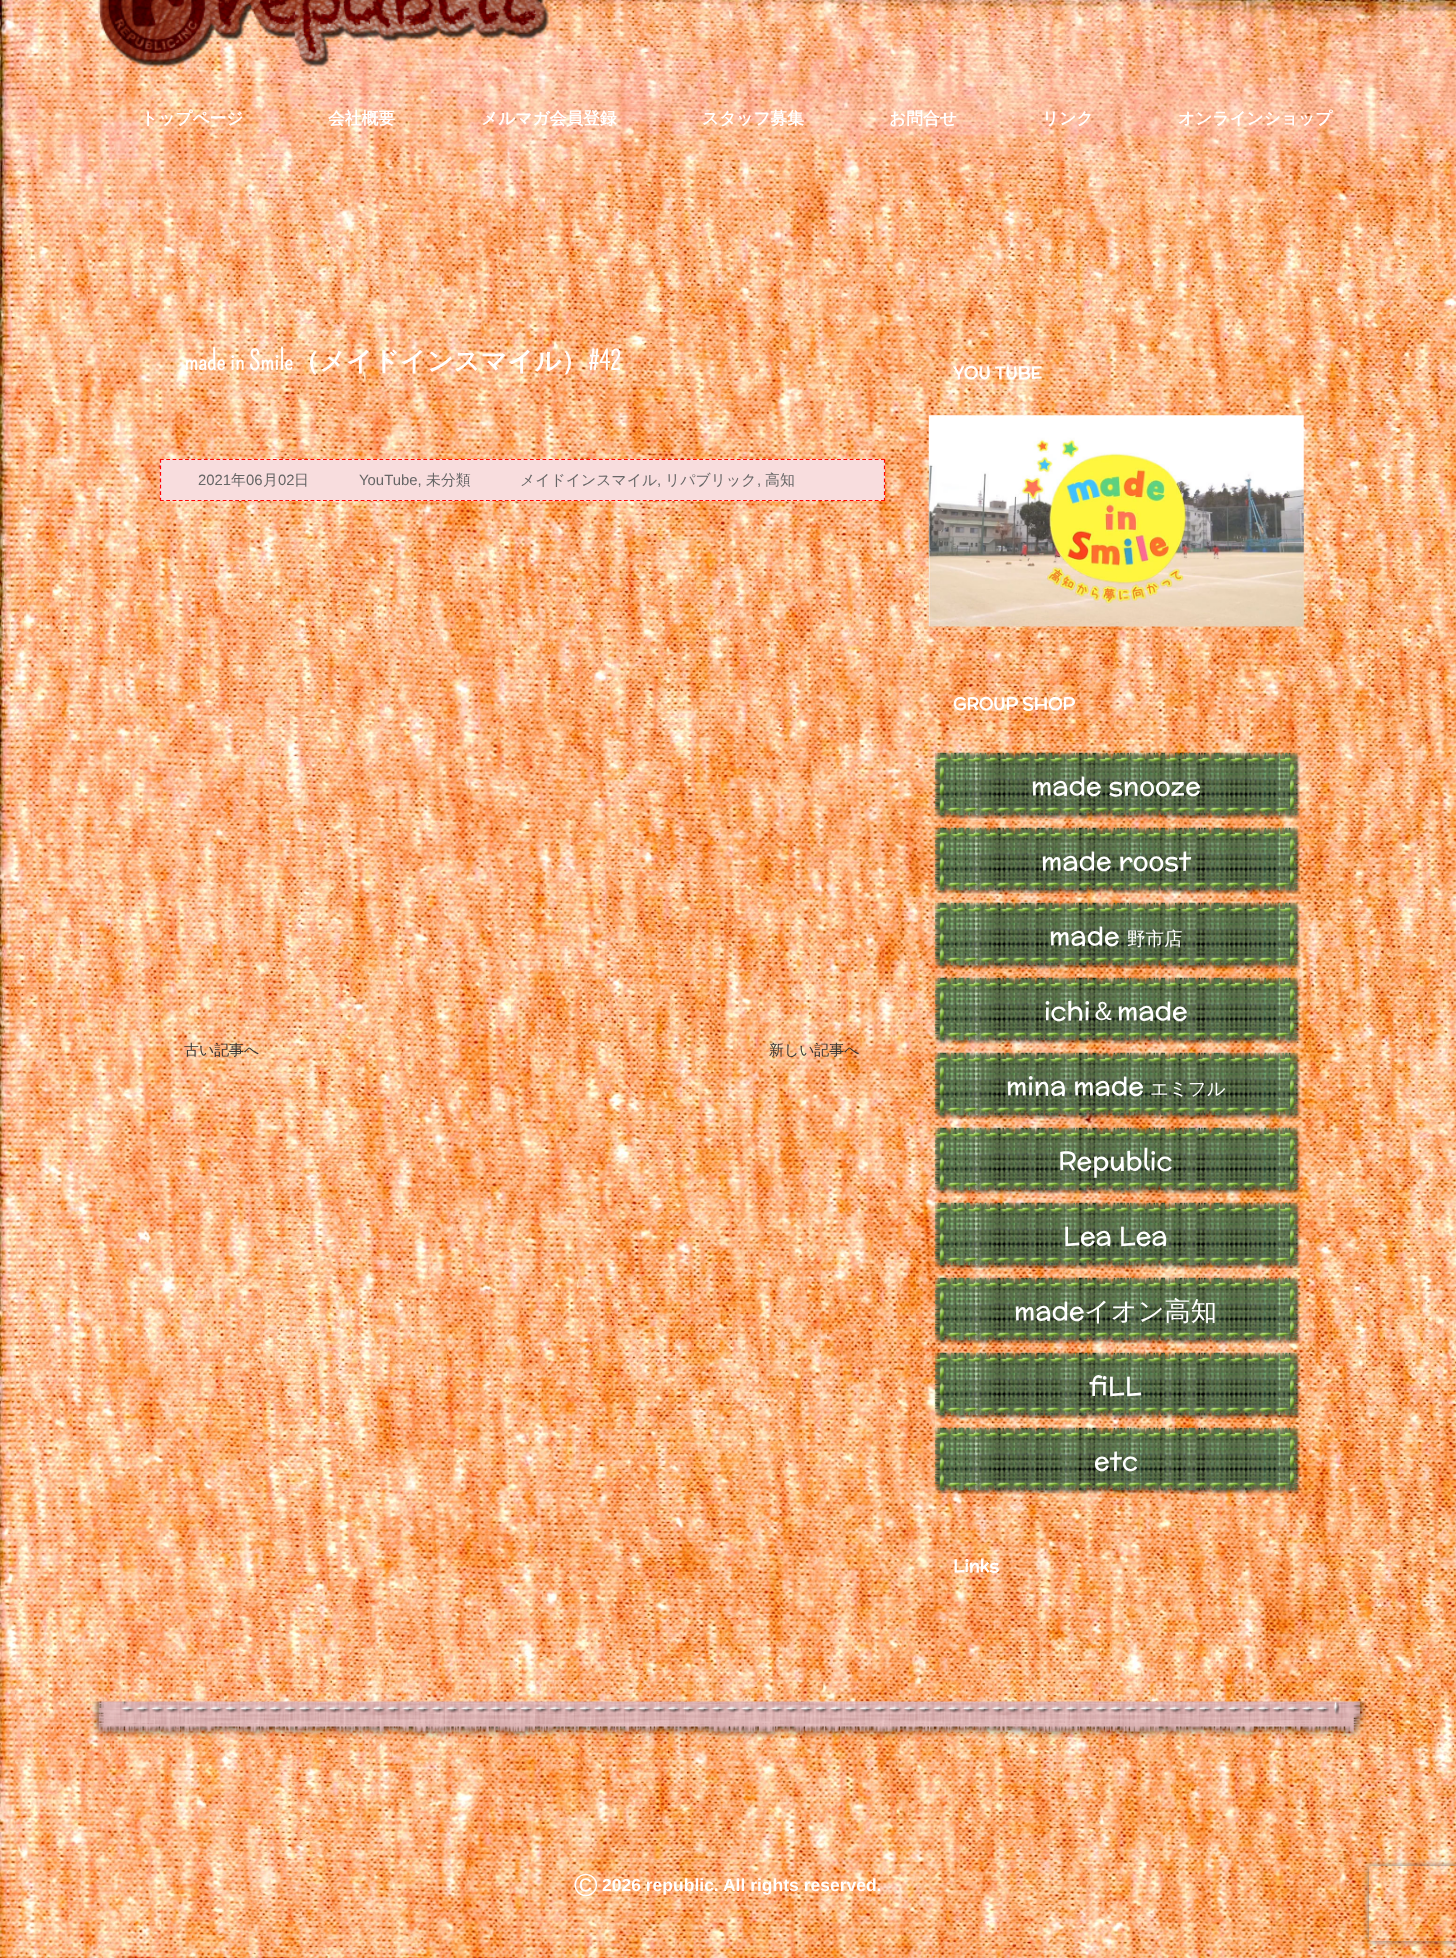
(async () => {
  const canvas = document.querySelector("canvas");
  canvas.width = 1456;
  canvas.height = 1958;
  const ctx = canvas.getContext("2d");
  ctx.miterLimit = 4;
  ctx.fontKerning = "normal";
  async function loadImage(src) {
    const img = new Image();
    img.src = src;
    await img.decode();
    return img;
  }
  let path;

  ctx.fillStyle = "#ffffff";
  ctx.fillRect(0, 0, 1456, 1958);
  ctx.drawImage(await loadImage("img/1.png"), 0, 0, 1456, 1958);
  ctx.drawImage(await loadImage("img/2.png"), 98, 0, 451, 67);
  ctx.fillStyle = "#f8ddde";
  ctx.fillRect(160, 459, 725, 42);
  path = new Path2D("M160 459.5H885");
  ctx.strokeStyle = "#ff0000";
  ctx.lineWidth = 1.2;
  ctx.setLineDash([3.75, 2.52]);
  ctx.stroke(path);
  path = new Path2D("M884.5 459V501");
  ctx.setLineDash([3.75, 2.71]);
  ctx.stroke(path);
  path = new Path2D("M160 500.5H885");
  ctx.setLineDash([3.75, 2.52]);
  ctx.stroke(path);
  path = new Path2D("M160.5 459V501");
  ctx.setLineDash([3.75, 2.71]);
  ctx.stroke(path);
  ctx.drawImage(await loadImage("img/3.png"), 928, 415, 376, 212);
  ctx.drawImage(await loadImage("img/4.png"), 934, 752, 366, 67);
  ctx.drawImage(await loadImage("img/5.png"), 934, 827, 366, 67);
  ctx.drawImage(await loadImage("img/6.png"), 934, 902, 366, 67);
  ctx.drawImage(await loadImage("img/7.png"), 934, 977, 366, 67);
  ctx.drawImage(await loadImage("img/8.png"), 934, 1052, 366, 67);
  ctx.drawImage(await loadImage("img/9.png"), 934, 1127, 366, 67);
  ctx.drawImage(await loadImage("img/10.png"), 934, 1202, 366, 67);
  ctx.drawImage(await loadImage("img/11.png"), 934, 1277, 366, 67);
  ctx.drawImage(await loadImage("img/12.png"), 934, 1352, 366, 67);
  ctx.drawImage(await loadImage("img/13.png"), 934, 1427, 366, 67);
  ctx.drawImage(await loadImage("img/14.png"), 92, 1701, 1274, 37);
  ctx.save();
  path = new Path2D("M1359 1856H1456V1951H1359ZM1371.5 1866H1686.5C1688 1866 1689 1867 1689 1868.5V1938.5C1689 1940 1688 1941 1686.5 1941H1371.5C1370 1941 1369 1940 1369 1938.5V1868.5C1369 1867 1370 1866 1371.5 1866Z");
  ctx.clip(path, "evenodd");
  ctx.fillStyle = "#808080";
  ctx.filter = "blur(3px)";
  ctx.beginPath();
  ctx.roundRect(1369, 1866, 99, 75, 2.5);
  ctx.fill();
  ctx.filter = "none";
  ctx.restore();
  ctx.font = "bold 16.75px WenQuanYi Zen Hei";
  ctx.fillStyle = "#ffffff";
  for (const [text, x, y] of [
    ["トップページ", 141, 124],
    ["会社概要", 328, 124],
    ["メルマガ会員登録", 481, 124],
    ["スタッフ募集", 702, 124],
    ["お問合せ", 889, 124],
    ["リンク", 1042, 124],
    ["オンラインショップ", 1178, 124],
  ]) {
    ctx.fillText(text, x, y);
  }
  ctx.font = "bold 26.25px Pompiere";
  ctx.fillText("made in Smile", 184, 370);
  ctx.font = "bold 26.25px WenQuanYi Zen Hei";
  ctx.fillText("（メイドインスマイル）", 293, 370);
  ctx.font = "bold 26.25px Pompiere";
  ctx.fillText("#42", 588, 370);
  ctx.font = "14.9px Liberation Sans";
  ctx.fillStyle = "#666666";
  ctx.fillText("2021", 198, 485);
  ctx.font = "500 14.9px WenQuanYi Zen Hei";
  ctx.fillText("年", 231, 485);
  ctx.font = "14.9px Liberation Sans";
  ctx.fillText("06", 246, 485);
  ctx.font = "500 14.9px WenQuanYi Zen Hei";
  ctx.fillText("月", 263, 485);
  ctx.font = "14.9px Liberation Sans";
  ctx.fillText("02", 278, 485);
  ctx.font = "500 14.9px WenQuanYi Zen Hei";
  ctx.fillText("日", 294, 485);
  ctx.font = "14.9px Liberation Sans";
  ctx.fillText("YouTube,", 359, 485);
  ctx.font = "500 14.9px WenQuanYi Zen Hei";
  ctx.fillText("未分類", 426, 485);
  ctx.fillText("メイドインスマイル", 520, 485);
  ctx.font = "14.9px Liberation Sans";
  ctx.fillText(",", 657, 485);
  ctx.font = "500 14.9px WenQuanYi Zen Hei";
  ctx.fillText("リパブリック", 665, 485);
  ctx.font = "14.9px Liberation Sans";
  ctx.fillText(",", 757, 485);
  ctx.font = "500 14.9px WenQuanYi Zen Hei";
  ctx.fillText("高知", 765, 485);
  ctx.fillStyle = "#333333";
  ctx.fillText("古い記事へ", 184, 1055);
  ctx.fillText("新しい記事へ", 769, 1055);
  ctx.font = "bold 17.5px McLaren";
  ctx.fillStyle = "#ffffff";
  ctx.fillText("YOU TUBE", 953, 379);
  ctx.fillText("GROUP SHOP", 953, 710);
  ctx.font = "26.25px McLaren";
  for (const [text, x, y] of [
    ["made snooze", 1031, 795],
    ["made roost", 1041, 870],
    ["made", 1049, 945],
  ]) {
    ctx.fillText(text, x, y);
  }
  ctx.font = "500 18.5px WenQuanYi Zen Hei";
  ctx.fillText("野市店", 1127, 945);
  ctx.font = "26.25px McLaren";
  ctx.fillText("ichi", 1044, 1020);
  ctx.font = "500 26.25px WenQuanYi Zen Hei";
  ctx.fillText("＆", 1090, 1020);
  ctx.font = "26.25px McLaren";
  ctx.fillText("made", 1117, 1020);
  ctx.fillText("mina made", 1006, 1095);
  ctx.font = "500 18.5px WenQuanYi Zen Hei";
  ctx.fillText("エミフル", 1150, 1095);
  ctx.font = "26.25px McLaren";
  for (const [text, x, y] of [
    ["Republic", 1058, 1170],
    ["Lea Lea", 1063, 1245],
    ["made", 1014, 1320],
  ]) {
    ctx.fillText(text, x, y);
  }
  ctx.font = "500 26.25px WenQuanYi Zen Hei";
  ctx.fillText("イオン高知", 1084, 1320);
  ctx.font = "26.25px McLaren";
  ctx.fillText("fiLL", 1089, 1395);
  ctx.fillText("etc", 1094, 1470);
  ctx.font = "bold 17.5px McLaren";
  ctx.fillText("Links", 953, 1572);
  ctx.font = "32px Liberation Sans";
  ctx.fillText("©", 574, 1896);
  ctx.font = "bold 17.5px Liberation Sans";
  ctx.fillText("2026 republic. All rights reserved.", 602, 1891);
})();
